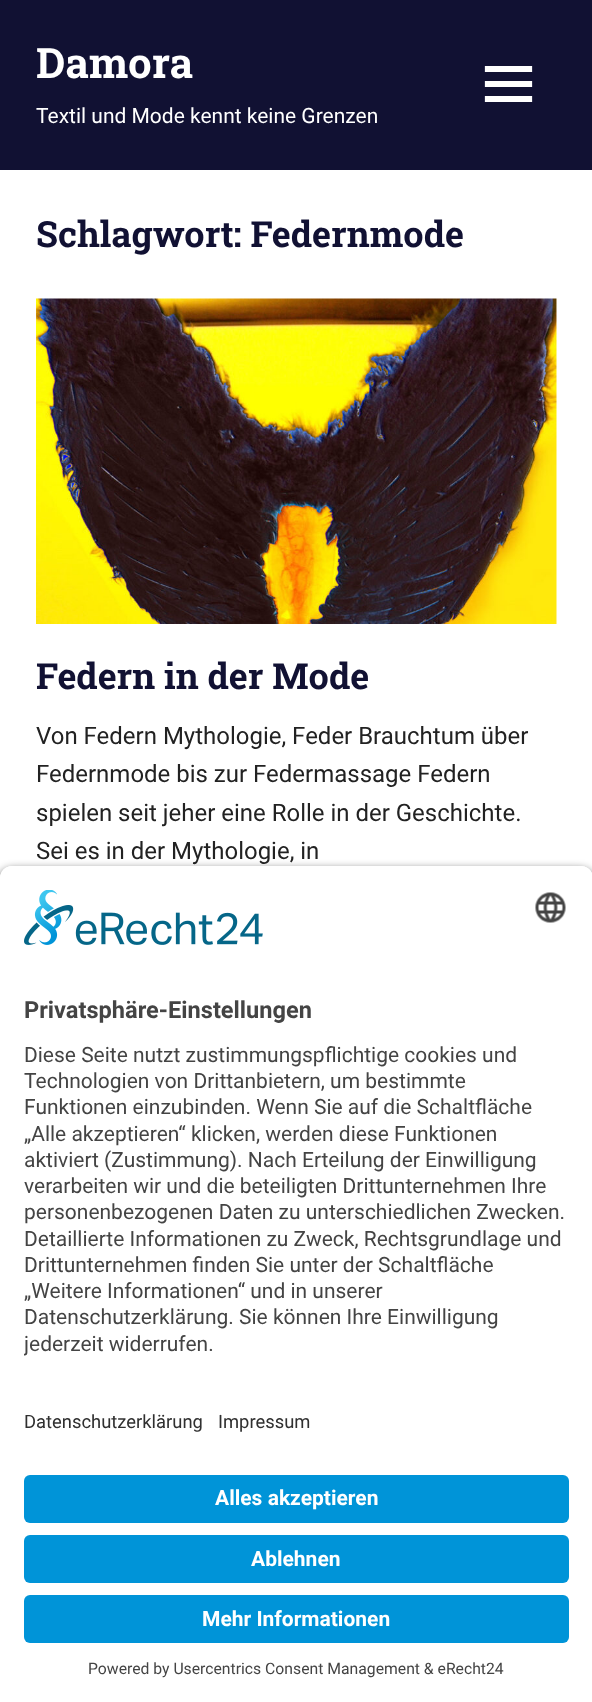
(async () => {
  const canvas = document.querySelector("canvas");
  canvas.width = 592;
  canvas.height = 1702;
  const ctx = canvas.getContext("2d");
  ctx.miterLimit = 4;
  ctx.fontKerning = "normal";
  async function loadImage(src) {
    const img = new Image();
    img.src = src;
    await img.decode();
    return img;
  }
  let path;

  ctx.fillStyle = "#ffffff";
  ctx.fillRect(0, 0, 592, 1702);
  ctx.fillStyle = "#111133";
  ctx.fillRect(0, 0, 592, 170);
  ctx.drawImage(await loadImage("img/1.png"), 484, 66, 49, 36);
  ctx.drawImage(await loadImage("img/2.png"), 36, 298, 521, 326);
  ctx.save();
  path = new Path2D("M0 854H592V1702H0ZM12 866H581C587.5 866 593 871.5 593 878V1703H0V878C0 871.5 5.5 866 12 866Z");
  ctx.clip(path, "evenodd");
  ctx.fillStyle = "rgba(0, 0, 0, 0.8)";
  ctx.filter = "blur(5px)";
  ctx.beginPath();
  ctx.roundRect(0, 870, 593, 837, 12);
  ctx.fill();
  ctx.filter = "none";
  ctx.restore();
  ctx.fillStyle = "#ffffff";
  path = new Path2D("M12 866H581C587.5 866 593 871.5 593 878V1388H0V878C0 871.5 5.5 866 12 866Z");
  ctx.fill(path);
  ctx.drawImage(await loadImage("img/3.png"), 24, 890, 239, 55);
  ctx.drawImage(await loadImage("img/4.png"), 535, 892, 31, 31);
  ctx.fillStyle = "#0094d8";
  ctx.beginPath();
  ctx.roundRect(24, 1475, 545, 48, 6);
  ctx.fill();
  ctx.beginPath();
  ctx.roundRect(24, 1535, 545, 48, 6);
  ctx.fill();
  ctx.beginPath();
  ctx.roundRect(24, 1595, 545, 48, 6);
  ctx.fill();
  ctx.font = "bold 42px Roboto Slab";
  ctx.fillStyle = "#ffffff";
  ctx.fillText("Damora", 36, 78);
  ctx.font = "21px Roboto";
  ctx.fillText("Textil und Mode kennt keine Grenzen", 36, 123);
  ctx.font = "bold 36px Roboto Slab";
  ctx.fillStyle = "#111133";
  ctx.fillText("Schlagwort: Federnmode", 36, 247);
  ctx.fillText("Federn in der Mode", 36, 689);
  ctx.font = "24px Roboto";
  ctx.fillStyle = "#222222";
  for (const [text, x, y] of [
    ["Von Federn Mythologie, Feder Brauchtum über", 36, 744],
    ["Federnmode bis zur Federmassage Federn", 36, 782],
    ["spielen seit jeher eine Rolle in der Geschichte.", 36, 821],
    ["Sei es in der Mythologie, in", 36, 859],
  ]) {
    ctx.fillText(text, x, y);
  }
  ctx.font = "bold 23.6px Roboto";
  ctx.fillStyle = "#444444";
  ctx.fillText("Privatsphäre-Einstellungen", 24, 1018);
  ctx.font = "21px Roboto";
  for (const [text, x, y] of [
    ["Diese Seite nutzt zustimmungspflichtige cookies und", 24, 1062],
    ["Technologien von Drittanbietern, um bestimmte", 24, 1088],
    ["Funktionen einzubinden. Wenn Sie auf die Schaltfläche", 24, 1114],
    ["„Alle akzeptieren“ klicken, werden diese Funktionen", 24, 1141],
    ["aktiviert (Zustimmung). Nach Erteilung der Einwilligung", 24, 1167],
    ["verarbeiten wir und die beteiligten Drittunternehmen Ihre", 24, 1193],
    ["personenbezogenen Daten zu unterschiedlichen Zwecken.", 24, 1219],
    ["Detaillierte Informationen zu Zweck, Rechtsgrundlage und", 24, 1246],
    ["Drittunternehmen finden Sie unter der Schaltfläche", 24, 1272],
    ["„Weitere Informationen“ und in unserer", 24, 1298],
    ["Datenschutzerklärung. Sie können Ihre Einwilligung", 24, 1324],
  ]) {
    ctx.fillText(text, x, y);
  }
  ctx.save();
  ctx.beginPath();
  ctx.rect(24, 1037, 545, 327);
  ctx.clip();
  ctx.fillText("jederzeit widerrufen.", 24, 1351);
  ctx.restore();
  ctx.font = "18.4px Roboto";
  ctx.fillStyle = "#303030";
  ctx.fillText("Datenschutzerklärung", 24, 1428);
  ctx.fillText("Impressum", 218, 1428);
  ctx.font = "bold 21px Roboto";
  ctx.fillStyle = "#ffffff";
  for (const [text, x, y] of [
    ["Alles akzeptieren", 215, 1505],
    ["Ablehnen", 251, 1566],
    ["Mehr Informationen", 202, 1626],
  ]) {
    ctx.fillText(text, x, y);
  }
  ctx.font = "15.75px Roboto";
  ctx.fillStyle = "#444444";
  ctx.fillText("Powered by Usercentrics Consent Management & eRecht24", 88, 1674);
})();
